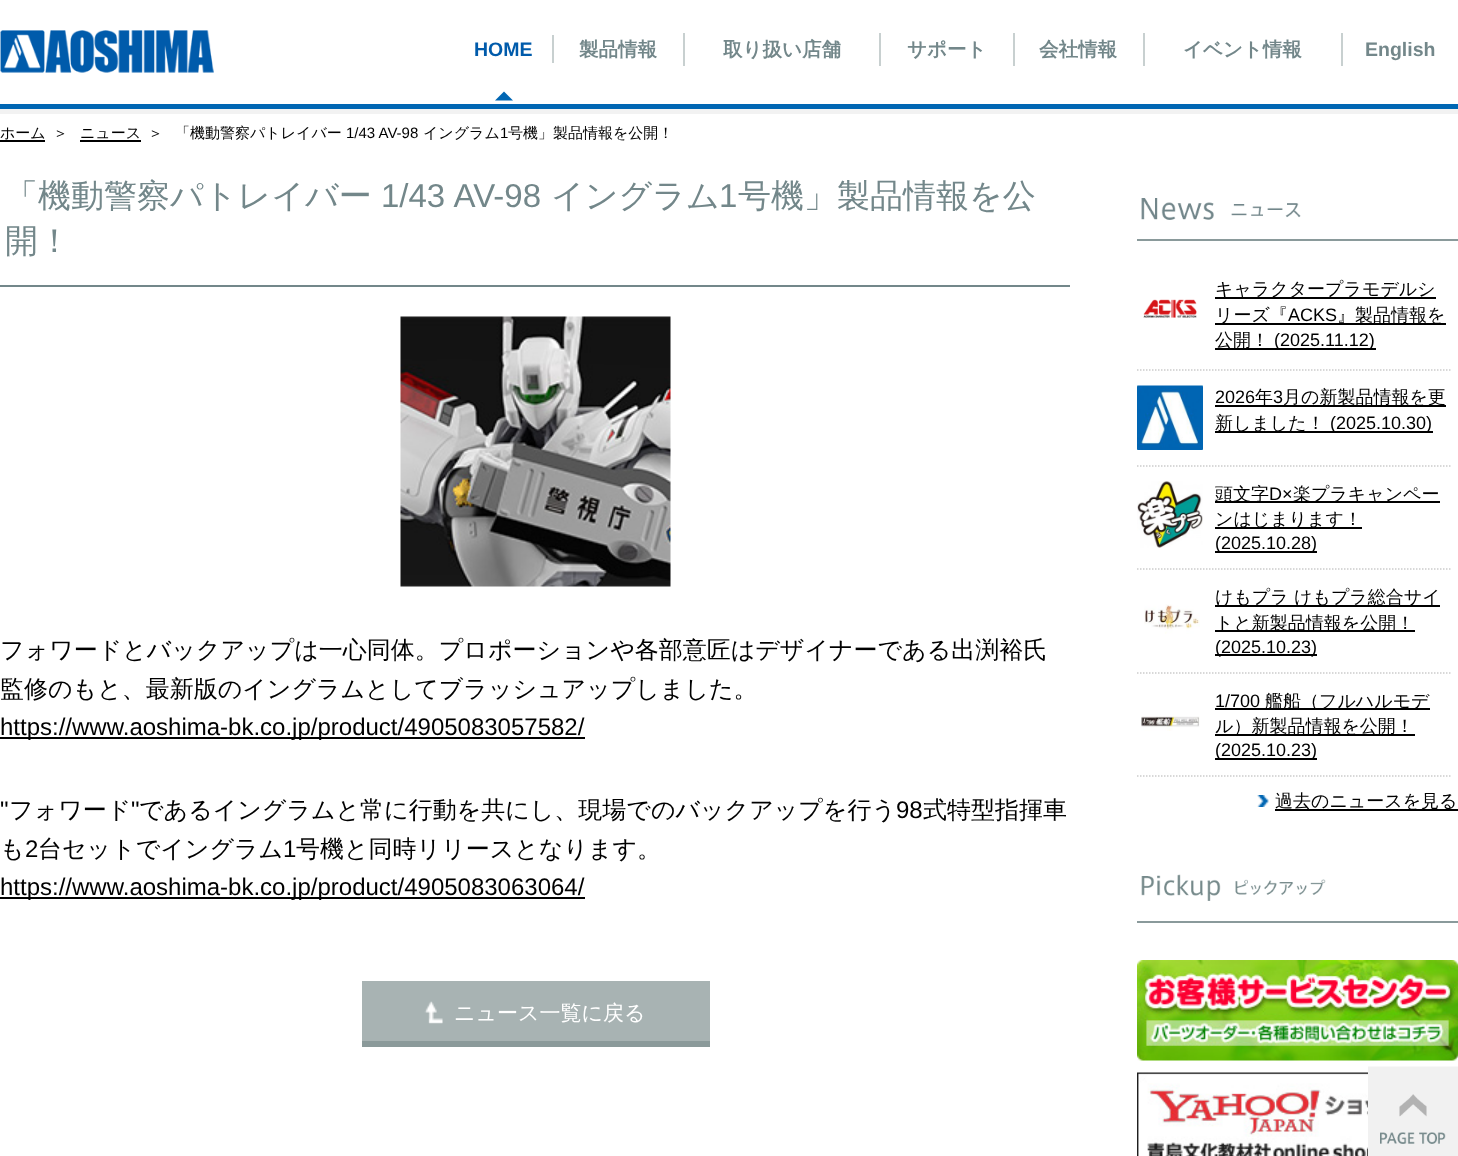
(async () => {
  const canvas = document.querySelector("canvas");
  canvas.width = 1458;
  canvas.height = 1156;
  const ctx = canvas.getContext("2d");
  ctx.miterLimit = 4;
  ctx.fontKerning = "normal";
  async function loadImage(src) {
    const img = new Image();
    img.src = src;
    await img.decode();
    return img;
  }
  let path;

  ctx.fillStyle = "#ffffff";
  ctx.fillRect(0, 0, 1458, 1156);
  ctx.fillStyle = "#f2f2f2";
  ctx.fillRect(0, 109, 1458, 5);
  ctx.fillStyle = "#0066b3";
  ctx.fillRect(0, 104, 1458, 5);
  ctx.drawImage(await loadImage("img/1.png"), 0, 30, 214, 43);
  ctx.fillStyle = "#c8d0d0";
  ctx.fillRect(552, 35, 2, 28);
  ctx.fillStyle = "#0066b3";
  path = new Path2D("M513 100.5H495L504 91.5Z");
  ctx.fill(path);
  for (const [x, y, w, h, color] of [
    [683, 33, 2, 33, "#c8d0d0"],
    [879, 33, 2, 33, "#c8d0d0"],
    [1013, 33, 2, 33, "#c8d0d0"],
    [1143, 33, 2, 33, "#c8d0d0"],
    [1341, 33, 2, 33, "#c8d0d0"],
    [0, 140, 45, 2, "#000000"],
    [80, 140, 61, 2, "#000000"],
    [0, 285, 1070, 2, "#73878a"],
  ]) {
    ctx.fillStyle = color;
    ctx.fillRect(x, y, w, h);
  }
  ctx.drawImage(await loadImage("img/2.png"), 400, 316, 271, 271);
  for (const [x, y, w, h, color] of [
    [0, 737, 585, 2, "#000000"],
    [0, 897, 585, 2, "#000000"],
    [362, 981, 348, 60, "#a8b3b3"],
    [362, 1041, 348, 6, "#8b9a9a"],
  ]) {
    ctx.fillStyle = color;
    ctx.fillRect(x, y, w, h);
  }
  ctx.drawImage(await loadImage("img/3.png"), 424, 1001, 19, 23);
  ctx.fillStyle = "#8a9a9b";
  ctx.fillRect(1137, 239, 321, 2);
  ctx.drawImage(await loadImage("img/4.png"), 1141, 198, 160, 22);
  path = new Path2D("M1137 370H1450.5");
  ctx.strokeStyle = "#cccccc";
  ctx.lineWidth = 1.5;
  ctx.setLineDash([1.5, 1.5]);
  ctx.stroke(path);
  ctx.drawImage(await loadImage("img/5.png"), 1143, 299, 54, 19);
  for (const [x, y, w, h, color] of [
    [1215, 297, 221, 2, "#000000"],
    [1215, 323, 231, 2, "#000000"],
    [1215, 348, 161, 2, "#000000"],
  ]) {
    ctx.fillStyle = color;
    ctx.fillRect(x, y, w, h);
  }
  path = new Path2D("M1137 466H1450.5");
  ctx.stroke(path);
  ctx.drawImage(await loadImage("img/6.png"), 1137, 385, 66, 65);
  ctx.fillRect(1215, 405, 231, 2);
  ctx.fillRect(1215, 431, 218, 2);
  path = new Path2D("M1137 569H1450.5");
  ctx.stroke(path);
  ctx.drawImage(await loadImage("img/7.png"), 1137, 481, 66, 67);
  for (const [x, y, w, h, color] of [
    [1215, 501, 225, 2, "#000000"],
    [1215, 527, 147, 2, "#000000"],
    [1215, 551, 102, 2, "#000000"],
  ]) {
    ctx.fillStyle = color;
    ctx.fillRect(x, y, w, h);
  }
  path = new Path2D("M1137 673H1450.5");
  ctx.stroke(path);
  ctx.drawImage(await loadImage("img/8.png"), 1144, 604, 56, 30);
  for (const [x, y, w, h, color] of [
    [1215, 605, 225, 2, "#000000"],
    [1215, 630, 200, 2, "#000000"],
    [1215, 654, 102, 2, "#000000"],
  ]) {
    ctx.fillStyle = color;
    ctx.fillRect(x, y, w, h);
  }
  path = new Path2D("M1137 776H1450.5");
  ctx.stroke(path);
  ctx.drawImage(await loadImage("img/9.png"), 1141, 716, 59, 15);
  for (const [x, y, w, h, color] of [
    [1215, 708, 215, 2, "#000000"],
    [1215, 734, 200, 2, "#000000"],
    [1215, 758, 102, 2, "#000000"],
  ]) {
    ctx.fillStyle = color;
    ctx.fillRect(x, y, w, h);
  }
  ctx.drawImage(await loadImage("img/10.png"), 1257, 795, 12, 12);
  ctx.fillRect(1275, 809, 183, 2);
  ctx.fillStyle = "#8a9a9b";
  ctx.fillRect(1137, 921, 321, 2);
  ctx.drawImage(await loadImage("img/11.png"), 1141, 874, 185, 27);
  ctx.drawImage(await loadImage("img/12.png"), 1137, 960, 321, 101);
  ctx.drawImage(await loadImage("img/13.png"), 1137, 1072, 231, 84);
  ctx.drawImage(await loadImage("img/14.png"), 1368, 1066, 90, 90);
  ctx.font = "bold 19.5px Liberation Sans";
  ctx.fillStyle = "#005bab";
  ctx.fillText("HOME", 474, 56);
  ctx.font = "bold 19.5px WenQuanYi Zen Hei";
  ctx.fillStyle = "#73878a";
  for (const [text, x, y] of [
    ["製品情報", 579, 56],
    ["取り扱い店舗", 723, 56],
    ["サポート", 907, 56],
    ["会社情報", 1039, 56],
    ["イベント情報", 1183, 56],
  ]) {
    ctx.fillText(text, x, y);
  }
  ctx.font = "bold 19.5px Liberation Sans";
  ctx.fillText("English", 1365, 56);
  ctx.font = "500 15px WenQuanYi Zen Hei";
  ctx.fillStyle = "#000000";
  for (const [text, x, y] of [
    ["ホーム", 0, 138],
    ["＞", 53, 138],
    ["ニュース", 80, 138],
    ["＞", 148, 138],
    ["「機動警察パトレイバー", 175, 138],
  ]) {
    ctx.fillText(text, x, y);
  }
  ctx.font = "15px Liberation Sans";
  ctx.fillText("1/43 AV-98", 346, 138);
  ctx.font = "500 15px WenQuanYi Zen Hei";
  ctx.fillText("イングラム", 423, 138);
  ctx.font = "15px Liberation Sans";
  ctx.fillText("1", 500, 138);
  ctx.font = "500 15px WenQuanYi Zen Hei";
  ctx.fillText("号機」製品情報を公開！", 508, 138);
  ctx.font = "500 33px WenQuanYi Zen Hei";
  ctx.fillStyle = "#73878a";
  ctx.fillText("「機動警察パトレイバー", 5, 207);
  ctx.wordSpacing = "1px";
  ctx.font = "33px Liberation Sans";
  ctx.fillText("1/43 AV-98", 381, 207);
  ctx.wordSpacing = "0px";
  ctx.font = "500 33px WenQuanYi Zen Hei";
  ctx.fillText("イングラム", 551, 207);
  ctx.font = "33px Liberation Sans";
  ctx.fillText("1", 719, 207);
  ctx.font = "500 33px WenQuanYi Zen Hei";
  ctx.fillText("号機」製品情報を公", 738, 207);
  ctx.fillText("開！", 5, 252);
  ctx.font = "500 24px WenQuanYi Zen Hei";
  ctx.fillStyle = "#000000";
  ctx.fillText("フォワードとバックアップは一心同体。プロポーションや各部意匠はデザイナーである出渕裕氏", 0, 658);
  ctx.fillText("監修のもと、最新版のイングラムとしてブラッシュアップしました。", 0, 697);
  ctx.font = "24px Liberation Sans";
  ctx.fillText("https://www.aoshima-bk.co.jp/product/4905083057582/", 0, 735);
  ctx.fillText("\"", 0, 818);
  ctx.font = "500 24px WenQuanYi Zen Hei";
  ctx.fillText("フォワード", 9, 818);
  ctx.font = "24px Liberation Sans";
  ctx.fillText("\"", 131, 818);
  ctx.font = "500 24px WenQuanYi Zen Hei";
  ctx.fillText("であるイングラムと常に行動を共にし、現場でのバックアップを行う", 139, 818);
  ctx.font = "24px Liberation Sans";
  ctx.fillText("98", 896, 818);
  ctx.font = "500 24px WenQuanYi Zen Hei";
  ctx.fillText("式特型指揮車", 923, 818);
  ctx.fillText("も", 0, 857);
  ctx.font = "24px Liberation Sans";
  ctx.fillText("2", 25, 857);
  ctx.font = "500 24px WenQuanYi Zen Hei";
  ctx.fillText("台セットでイングラム", 38, 857);
  ctx.font = "24px Liberation Sans";
  ctx.fillText("1", 283, 857);
  ctx.font = "500 24px WenQuanYi Zen Hei";
  ctx.fillText("号機と同時リリースとなります。", 296, 857);
  ctx.font = "24px Liberation Sans";
  ctx.fillText("https://www.aoshima-bk.co.jp/product/4905083063064/", 0, 895);
  ctx.font = "500 21px WenQuanYi Zen Hei";
  ctx.fillStyle = "#ffffff";
  ctx.fillText("ニュース一覧に戻る", 454, 1020);
  ctx.font = "500 18px WenQuanYi Zen Hei";
  ctx.fillStyle = "#000000";
  ctx.fillText("キャラクタープラモデルシ", 1215, 295);
  ctx.fillText("リーズ『", 1215, 321);
  ctx.font = "18px Liberation Sans";
  ctx.fillText("ACKS", 1288, 321);
  ctx.font = "500 18px WenQuanYi Zen Hei";
  ctx.fillText("』製品情報を", 1337, 321);
  ctx.fillText("公開！", 1215, 346);
  ctx.font = "18px Liberation Sans";
  ctx.fillText("(2025.11.12)", 1274, 346);
  ctx.fillText("2026", 1215, 403);
  ctx.font = "500 18px WenQuanYi Zen Hei";
  ctx.fillText("年", 1255, 403);
  ctx.font = "18px Liberation Sans";
  ctx.fillText("3", 1273, 403);
  ctx.font = "500 18px WenQuanYi Zen Hei";
  ctx.fillText("月の新製品情報を更", 1283, 403);
  ctx.fillText("新しました！", 1215, 429);
  ctx.font = "18px Liberation Sans";
  ctx.fillText("(2025.10.30)", 1330, 429);
  ctx.font = "500 18px WenQuanYi Zen Hei";
  ctx.fillText("頭文字", 1215, 500);
  ctx.font = "18px Liberation Sans";
  ctx.fillText("D×", 1269, 500);
  ctx.font = "500 18px WenQuanYi Zen Hei";
  ctx.fillText("楽プラキャンペー", 1293, 500);
  ctx.fillText("ンはじまります！", 1215, 525);
  ctx.font = "18px Liberation Sans";
  ctx.fillText("(2025.10.28)", 1215, 549);
  ctx.font = "500 18px WenQuanYi Zen Hei";
  ctx.fillText("けもプラ けもプラ総合サイ", 1215, 603);
  ctx.fillText("トと新製品情報を公開！", 1215, 629);
  ctx.font = "18px Liberation Sans";
  ctx.fillText("(2025.10.23)", 1215, 653);
  ctx.fillText("1/700", 1215, 707);
  ctx.font = "500 18px WenQuanYi Zen Hei";
  ctx.fillText("艦船（フルハルモデ", 1265, 707);
  ctx.fillText("ル）新製品情報を公開！", 1215, 732);
  ctx.font = "18px Liberation Sans";
  ctx.fillText("(2025.10.23)", 1215, 756);
  ctx.font = "500 18px WenQuanYi Zen Hei";
  ctx.fillText("過去のニュースを見る", 1275, 807);
})();
